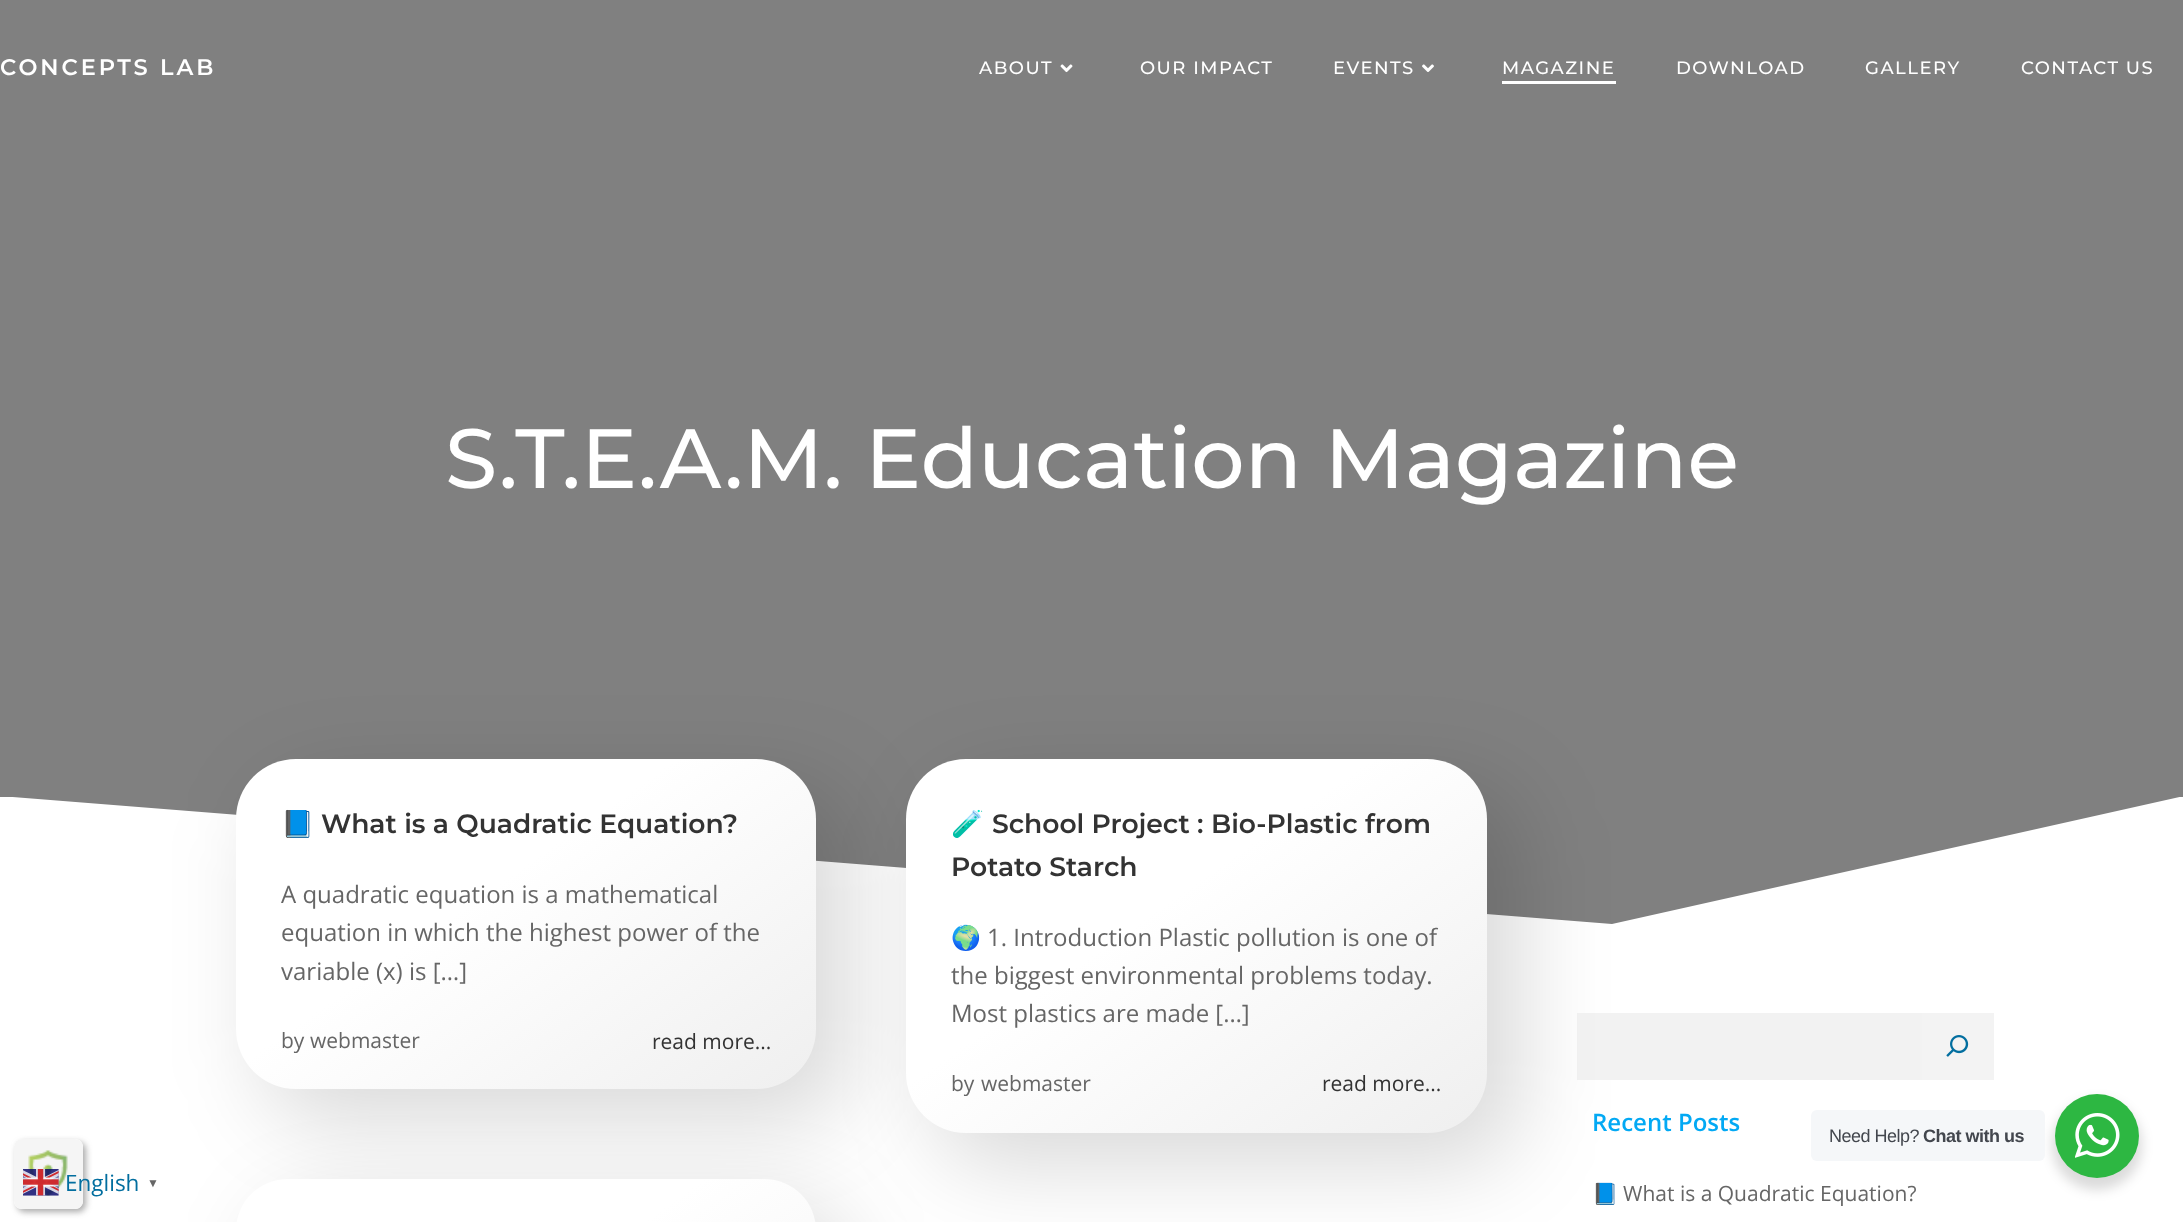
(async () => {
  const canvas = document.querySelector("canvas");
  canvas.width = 2183;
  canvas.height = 1222;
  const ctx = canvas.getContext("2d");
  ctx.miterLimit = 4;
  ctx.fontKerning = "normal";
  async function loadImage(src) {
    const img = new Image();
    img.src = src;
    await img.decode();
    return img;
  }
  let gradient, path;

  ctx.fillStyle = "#ffffff";
  ctx.fillRect(0, 0, 2183, 1222);
  ctx.fillStyle = "#808080";
  ctx.fillRect(0, 0, 2183, 924);
  ctx.drawImage(await loadImage("img/1.png"), 1060, 64, 13, 9);
  ctx.drawImage(await loadImage("img/2.png"), 1422, 64, 12, 8);
  ctx.fillStyle = "#ffffff";
  ctx.fillRect(1502, 81, 114, 3);
  ctx.save();
  ctx.beginPath();
  ctx.rect(0, 797, 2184, 135);
  ctx.clip();
  path = new Path2D("M1612 924L0 796V932H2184V796Z");
  ctx.fill(path);
  ctx.restore();
  ctx.fillStyle = "rgba(0, 0, 0, 0.15)";
  ctx.filter = "blur(45px)";
  ctx.beginPath();
  ctx.roundRect(263, 786, 586, 336, 63);
  ctx.fill();
  ctx.filter = "none";
  gradient = ctx.createLinearGradient(353, 677, 699, 1171);
  gradient.addColorStop(0.42, "#ffffff");
  gradient.addColorStop(1, "#efefef");
  ctx.fillStyle = gradient;
  ctx.beginPath();
  ctx.roundRect(236, 759, 580, 330, 60);
  ctx.fill();
  ctx.fillStyle = "rgba(0, 0, 0, 0.15)";
  ctx.filter = "blur(45px)";
  ctx.beginPath();
  ctx.roundRect(933, 786, 587, 380, 63);
  ctx.fill();
  ctx.filter = "none";
  gradient = ctx.createLinearGradient(1013, 684, 1379, 1207);
  gradient.addColorStop(0.42, "#ffffff");
  gradient.addColorStop(1, "#efefef");
  ctx.fillStyle = gradient;
  ctx.beginPath();
  ctx.roundRect(906, 759, 581, 374, 60);
  ctx.fill();
  ctx.fillStyle = "rgba(0, 0, 0, 0.15)";
  ctx.filter = "blur(45px)";
  ctx.beginPath();
  ctx.roundRect(263, 1206, 586, 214, 63);
  ctx.fill();
  ctx.filter = "none";
  gradient = ctx.createLinearGradient(342, 1104, 709, 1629);
  gradient.addColorStop(0.42, "#ffffff");
  gradient.addColorStop(1, "#efefef");
  ctx.fillStyle = gradient;
  ctx.beginPath();
  ctx.roundRect(236, 1179, 580, 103, 60);
  ctx.fill();
  ctx.fillStyle = "rgba(230, 230, 230, 0.5)";
  ctx.fillRect(1577, 1013, 345, 67);
  ctx.fillStyle = "#f3f3f3";
  ctx.fillRect(1922, 1013, 72, 67);
  ctx.drawImage(await loadImage("img/3.png"), 1946, 1035, 23, 22);
  ctx.save();
  path = new Path2D("M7 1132H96V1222H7ZM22 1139H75C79.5 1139 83 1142.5 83 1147V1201C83 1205.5 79.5 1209 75 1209H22C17.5 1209 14 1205.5 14 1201V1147C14 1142.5 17.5 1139 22 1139Z");
  ctx.clip(path, "evenodd");
  ctx.fillStyle = "rgba(77, 77, 77, 0.47)";
  ctx.filter = "blur(3px)";
  ctx.beginPath();
  ctx.roundRect(17, 1142, 69, 70, 8);
  ctx.fill();
  ctx.filter = "none";
  ctx.restore();
  ctx.fillStyle = "rgba(245, 245, 245, 0.99)";
  ctx.beginPath();
  ctx.roundRect(14, 1139, 69, 70, 8);
  ctx.fill();
  ctx.drawImage(await loadImage("img/4.png"), 28, 1150, 40, 46);
  ctx.drawImage(await loadImage("img/5.png"), 23, 1169, 36, 27);
  ctx.fillStyle = "rgba(0, 0, 0, 0.14)";
  ctx.filter = "blur(6px)";
  ctx.beginPath();
  ctx.roundRect(2052, 1100, 90, 90, 45);
  ctx.fill();
  ctx.filter = "none";
  ctx.fillStyle = "#f5f7f9";
  ctx.beginPath();
  ctx.roundRect(1811, 1110, 234, 51, 6);
  ctx.fill();
  ctx.fillStyle = "#2db742";
  ctx.beginPath();
  ctx.arc(2097, 1136, 42, 0, Math.PI * 2);
  ctx.fill();
  ctx.drawImage(await loadImage("img/6.png"), 2075, 1113, 45, 45);
  ctx.letterSpacing = "3px";
  ctx.font = "600 22.5px Montserrat";
  ctx.fillStyle = "#ffffff";
  ctx.fillText("CONCEPTS LAB", 0, 75);
  ctx.letterSpacing = "1.5px";
  ctx.font = "500 18px Montserrat";
  for (const [text, x, y] of [
    ["ABOUT", 979, 74],
    ["OUR IMPACT", 1140, 74],
    ["EVENTS", 1333, 74],
    ["MAGAZINE", 1502, 74],
    ["DOWNLOAD", 1676, 74],
    ["GALLERY", 1865, 74],
    ["CONTACT US", 2021, 74],
  ]) {
    ctx.fillText(text, x, y);
  }
  ctx.letterSpacing = "0px";
  ctx.font = "500 84px Montserrat";
  ctx.fillText("S.T.E.A.M. Education Magazine", 445, 488);
  ctx.font = "bold 26.6px Noto Color Emoji";
  ctx.fillStyle = "#333333";
  ctx.fillText("📘", 281, 833);
  ctx.font = "600 26.6px Montserrat";
  ctx.fillText("What is a Quadratic Equation?", 321, 833);
  ctx.font = "24px Open Sans";
  ctx.fillStyle = "#666666";
  for (const [text, x, y] of [
    ["A quadratic equation is a mathematical", 281, 903],
    ["equation in which the highest power of the", 281, 941],
    ["variable (x) is […]", 281, 980],
  ]) {
    ctx.fillText(text, x, y);
  }
  ctx.font = "21px Open Sans";
  ctx.fillText("by", 281, 1048);
  ctx.fillText("webmaster", 310, 1048);
  ctx.fillStyle = "#333333";
  ctx.fillText("read more...", 652, 1049);
  ctx.font = "bold 26.6px Noto Color Emoji";
  ctx.fillText("🧪", 951, 833);
  ctx.font = "600 26.6px Montserrat";
  ctx.fillText("School Project : Bio-Plastic from", 992, 833);
  ctx.fillText("Potato Starch", 951, 876);
  ctx.font = "24px Noto Color Emoji";
  ctx.fillStyle = "#666666";
  ctx.fillText("🌍", 951, 946);
  ctx.font = "24px Open Sans";
  for (const [text, x, y] of [
    ["1. Introduction Plastic pollution is one of", 987, 946],
    ["the biggest environmental problems today.", 951, 984],
    ["Most plastics are made […]", 951, 1022],
  ]) {
    ctx.fillText(text, x, y);
  }
  ctx.font = "21px Open Sans";
  ctx.fillText("by", 951, 1091);
  ctx.fillText("webmaster", 981, 1091);
  ctx.fillStyle = "#333333";
  ctx.fillText("read more...", 1322, 1091);
  ctx.font = "600 24px Open Sans";
  ctx.fillStyle = "#03a9f4";
  ctx.fillText("Recent Posts", 1592, 1131);
  ctx.font = "21px Noto Color Emoji";
  ctx.fillStyle = "#666666";
  ctx.fillText("📘", 1592, 1201);
  ctx.font = "21px Open Sans";
  ctx.fillText("What is a Quadratic Equation?", 1623, 1201);
  ctx.font = "22.5px Open Sans";
  ctx.fillStyle = "#026e9f";
  ctx.fillText("English", 65, 1191);
  ctx.font = "bold 12px Liberation Serif";
  ctx.fillStyle = "#666666";
  ctx.fillText("▼", 147, 1187);
  ctx.letterSpacing = "-0.5px";
  ctx.font = "18px Liberation Sans";
  ctx.fillStyle = "#43474e";
  ctx.fillText("Need Help?", 1829, 1142);
  ctx.font = "bold 18px Liberation Sans";
  ctx.fillText("Chat with us", 1923, 1142);
})();
